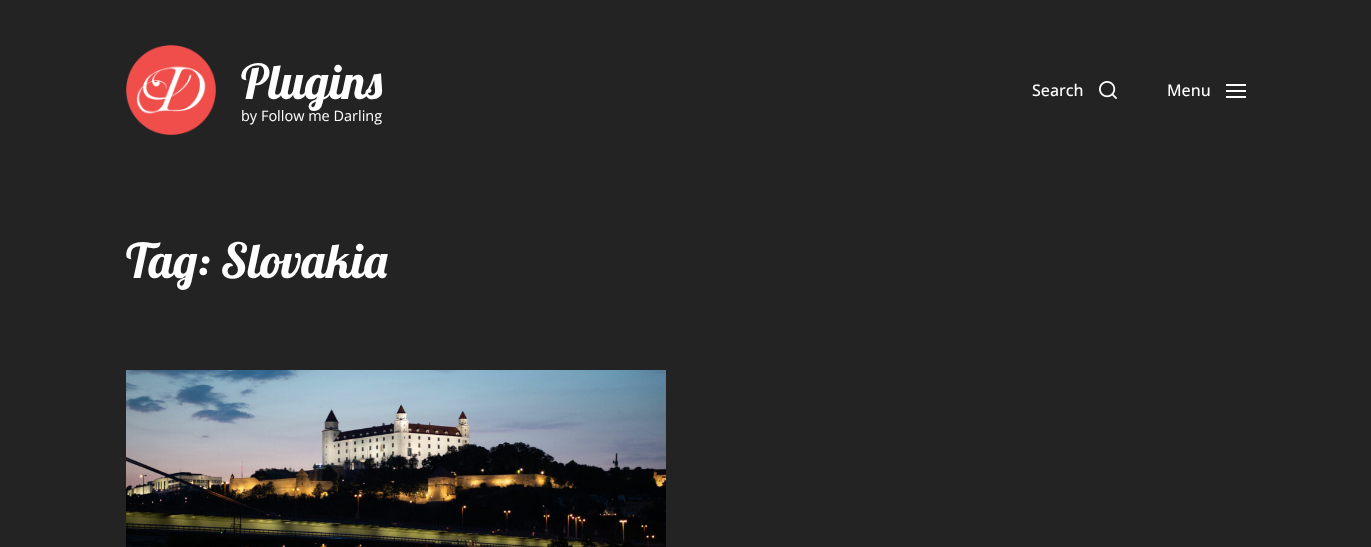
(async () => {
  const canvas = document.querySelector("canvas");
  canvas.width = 1371;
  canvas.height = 547;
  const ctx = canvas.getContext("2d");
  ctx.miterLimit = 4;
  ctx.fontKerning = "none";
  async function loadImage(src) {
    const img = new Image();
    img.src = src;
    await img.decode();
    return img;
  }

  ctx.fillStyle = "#232323";
  ctx.fillRect(0, 0, 1371, 547);
  ctx.drawImage(await loadImage("img/1.png"), 126, 45, 90, 90);
  ctx.drawImage(await loadImage("img/2.png"), 1099, 81, 18, 18);
  for (const [x, y, w, h, color] of [
    [1226, 84, 20, 2, "#ffffff"],
    [1226, 90, 20, 2, "#ffffff"],
    [1226, 96, 20, 2, "#ffffff"],
  ]) {
    ctx.fillStyle = color;
    ctx.fillRect(x, y, w, h);
  }
  ctx.drawImage(await loadImage("img/3.png"), 126, 370, 540, 177);
  ctx.font = "48px Lobster";
  ctx.fillText("Plugins", 241, 99);
  ctx.font = "14.5px Open Sans";
  ctx.fillText("by Follow me Darling", 241, 121);
  ctx.font = "500 16px Open Sans";
  ctx.fillText("Search", 1032, 96);
  ctx.fillText("Menu", 1167, 96);
  ctx.font = "48px Lobster";
  ctx.fillText("Tag: Slovakia", 126, 278);
})();
